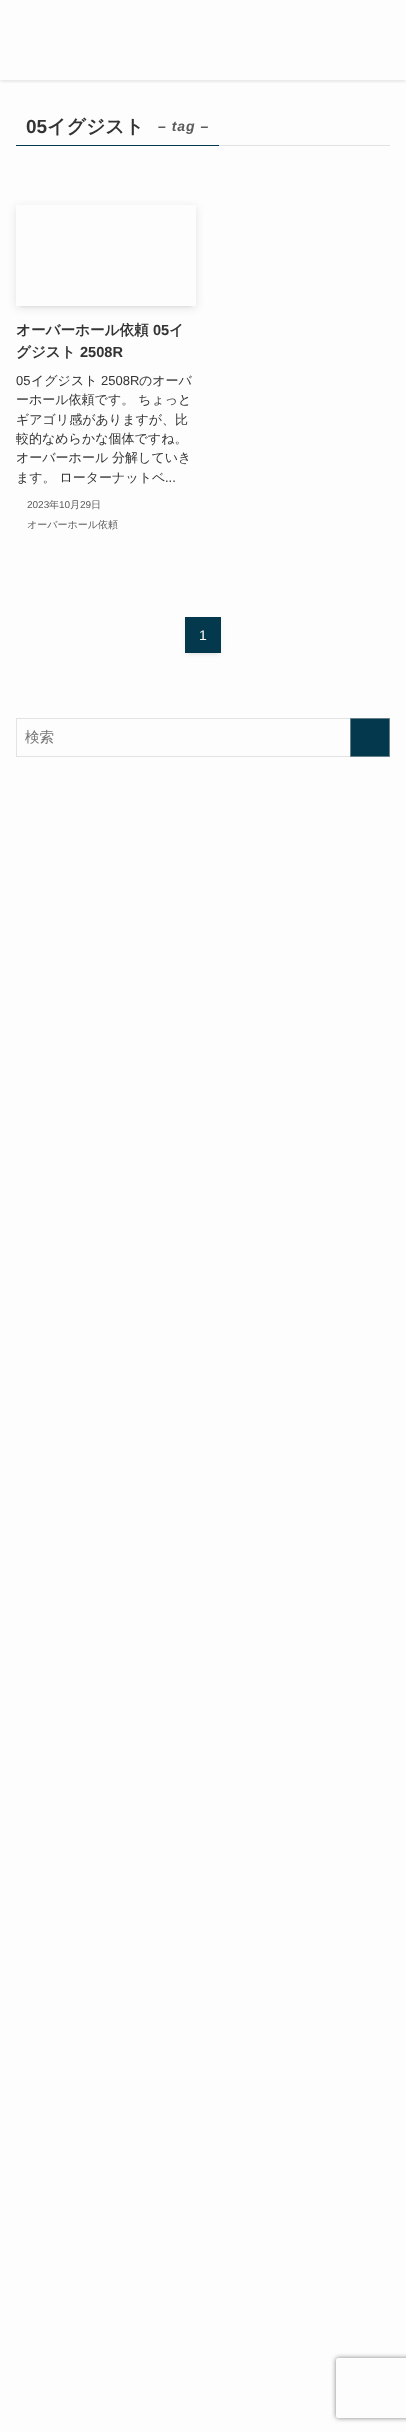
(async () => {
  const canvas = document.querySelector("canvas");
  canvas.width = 406;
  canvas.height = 2432;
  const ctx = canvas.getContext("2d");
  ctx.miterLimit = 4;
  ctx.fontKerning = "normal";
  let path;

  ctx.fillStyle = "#fdfdfd";
  ctx.fillRect(0, 0, 406, 2432);
  ctx.save();
  ctx.beginPath();
  ctx.rect(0, 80, 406, 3);
  ctx.clip();
  ctx.fillStyle = "rgba(0, 0, 0, 0.12)";
  ctx.filter = "blur(2px)";
  ctx.beginPath();
  ctx.rect(0, 1, 406, 80);
  ctx.fill();
  ctx.filter = "none";
  ctx.restore();
  ctx.fillStyle = "#e2e2e2";
  ctx.fillRect(219, 145, 171, 1);
  ctx.fillStyle = "#04384c";
  ctx.fillRect(16, 145, 203, 1);
  ctx.save();
  ctx.beginPath();
  ctx.rect(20, 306, 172, 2);
  ctx.clip();
  ctx.fillStyle = "rgba(0, 0, 0, 0.1)";
  ctx.filter = "blur(2px)";
  ctx.beginPath();
  ctx.rect(20, 213, 172, 93);
  ctx.fill();
  ctx.filter = "none";
  ctx.restore();
  ctx.save();
  path = new Path2D("M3 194H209V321H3ZM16 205H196V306H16Z");
  ctx.clip(path, "evenodd");
  ctx.fillStyle = "rgba(0, 0, 0, 0.1)";
  ctx.filter = "blur(4px)";
  ctx.beginPath();
  ctx.rect(16, 207, 180, 101);
  ctx.fill();
  ctx.filter = "none";
  ctx.restore();
  ctx.fillStyle = "rgba(0, 0, 0, 0.1)";
  ctx.filter = "blur(2px)";
  ctx.beginPath();
  ctx.rect(189, 625, 28, 28);
  ctx.fill();
  ctx.filter = "none";
  ctx.fillStyle = "rgba(0, 0, 0, 0.05)";
  ctx.filter = "blur(2px)";
  ctx.beginPath();
  ctx.rect(185, 619, 36, 36);
  ctx.fill();
  ctx.filter = "none";
  ctx.fillStyle = "#04384c";
  ctx.fillRect(185, 617, 36, 36);
  ctx.strokeStyle = "#e3e3e3";
  ctx.strokeRect(16.5, 718.5, 373, 38);
  ctx.beginPath();
  ctx.rect(350.5, 718.5, 39, 38);
  ctx.fill();
  ctx.strokeStyle = "#66808a";
  ctx.stroke();
  ctx.save();
  path = new Path2D("M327 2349H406V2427H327ZM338 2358H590C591 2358 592 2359 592 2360V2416C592 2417 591 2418 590 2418H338C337 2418 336 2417 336 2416V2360C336 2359 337 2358 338 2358Z");
  ctx.clip(path, "evenodd");
  ctx.fillStyle = "#808080";
  ctx.filter = "blur(2.5px)";
  ctx.beginPath();
  ctx.roundRect(336, 2358, 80, 60, 2);
  ctx.fill();
  ctx.filter = "none";
  ctx.restore();
  ctx.font = "bold 19px Liberation Sans";
  ctx.fillStyle = "#333333";
  ctx.fillText("05", 26, 133);
  ctx.font = "bold 19px WenQuanYi Zen Hei";
  ctx.fillText("イグジスト", 47, 133);
  ctx.letterSpacing = "1px";
  ctx.font = "italic bold 14px Liberation Sans";
  ctx.fillStyle = "#5b5b5b";
  ctx.fillText("– tag –", 158, 131);
  ctx.letterSpacing = "0px";
  ctx.font = "bold 14.6px WenQuanYi Zen Hei";
  ctx.fillStyle = "#333333";
  ctx.fillText("オーバーホール依頼", 16, 335);
  ctx.font = "bold 14.6px Liberation Sans";
  ctx.fillText("05", 153, 335);
  ctx.font = "bold 14.6px WenQuanYi Zen Hei";
  ctx.fillText("イ", 169, 335);
  ctx.fillText("グジスト", 16, 357);
  ctx.font = "bold 14.6px Liberation Sans";
  ctx.fillText("2508R", 80, 357);
  ctx.font = "13px Liberation Sans";
  ctx.fillText("05", 16, 385);
  ctx.font = "500 13px WenQuanYi Zen Hei";
  ctx.fillText("イグジスト", 31, 385);
  ctx.font = "13px Liberation Sans";
  ctx.fillText("2508R", 101, 385);
  ctx.font = "500 13px WenQuanYi Zen Hei";
  for (const [text, x, y] of [
    ["のオーバ", 139, 385],
    ["ーホール依頼です。 ちょっと", 16, 404],
    ["ギアゴリ感がありますが、比", 16, 424],
    ["較的なめらかな個体ですね。", 16, 443],
    ["オーバーホール 分解していき", 16, 462],
    ["ます。 ローターナットベ", 16, 482],
  ]) {
    ctx.fillText(text, x, y);
  }
  ctx.font = "13px Liberation Sans";
  ctx.fillText("...", 165, 482);
  ctx.font = "10px Liberation Sans";
  ctx.fillStyle = "#5b5b5b";
  ctx.fillText("2023", 27, 508);
  ctx.font = "500 10px WenQuanYi Zen Hei";
  ctx.fillText("年", 49, 508);
  ctx.font = "10px Liberation Sans";
  ctx.fillText("10", 59, 508);
  ctx.font = "500 10px WenQuanYi Zen Hei";
  ctx.fillText("月", 70, 508);
  ctx.font = "10px Liberation Sans";
  ctx.fillText("29", 80, 508);
  ctx.font = "500 10px WenQuanYi Zen Hei";
  ctx.fillText("日", 91, 508);
  ctx.fillText("オーバーホール依頼", 27, 528);
  ctx.font = "14px Liberation Sans";
  ctx.fillStyle = "#ffffff";
  ctx.fillText("1", 199, 640);
  ctx.font = "500 14.6px WenQuanYi Zen Hei";
  ctx.fillStyle = "#757575";
  ctx.fillText("検索", 25, 742);
})();
